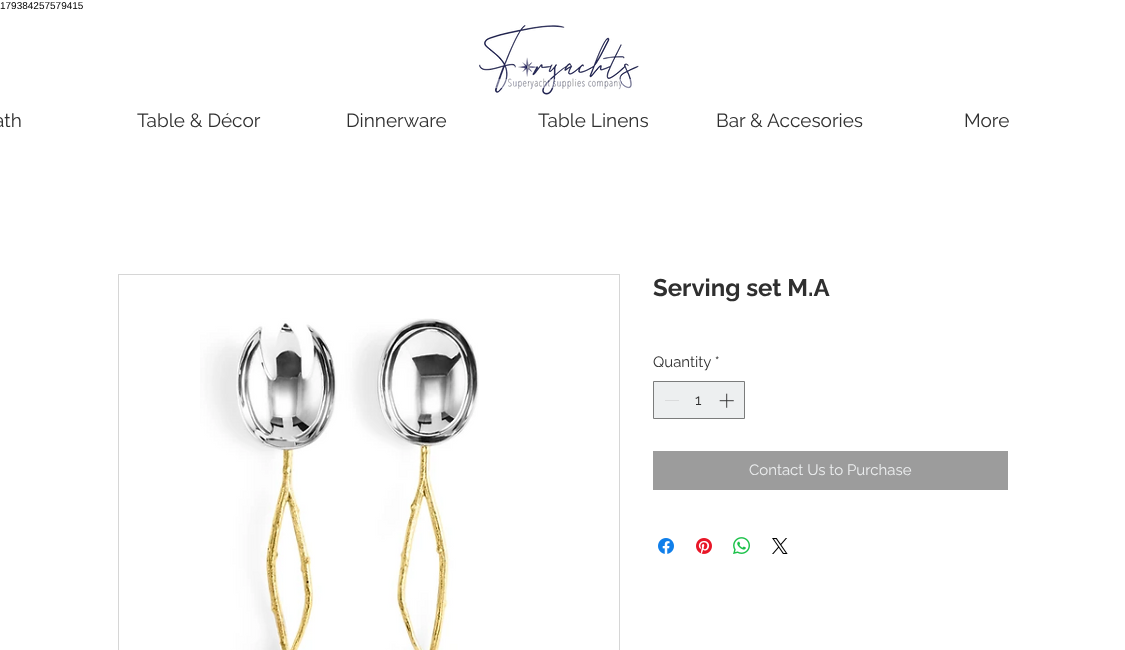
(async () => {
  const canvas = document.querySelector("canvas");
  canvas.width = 1125;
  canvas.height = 650;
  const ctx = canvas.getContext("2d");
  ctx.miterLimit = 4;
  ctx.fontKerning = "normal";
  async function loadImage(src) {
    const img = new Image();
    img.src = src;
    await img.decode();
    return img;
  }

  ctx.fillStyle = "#ffffff";
  ctx.fillRect(0, 0, 1125, 650);
  ctx.drawImage(await loadImage("img/1.png"), 479, 25, 160, 70);
  ctx.strokeStyle = "#d6d6d6";
  ctx.strokeRect(118.5, 274.5, 501, 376);
  ctx.drawImage(await loadImage("img/2.png"), 200, 318, 279, 332);
  ctx.fillStyle = "#edeff0";
  ctx.beginPath();
  ctx.rect(653.5, 381.5, 91, 37);
  ctx.fill();
  ctx.strokeStyle = "#7b7c7c";
  ctx.stroke();
  ctx.fillStyle = "#dadbdc";
  ctx.fillRect(665, 400, 14, 1);
  ctx.drawImage(await loadImage("img/3.png"), 719, 393, 15, 15);
  ctx.fillStyle = "#9c9c9c";
  ctx.fillRect(653, 451, 355, 39);
  ctx.drawImage(await loadImage("img/4.png"), 658, 538, 16, 16);
  ctx.drawImage(await loadImage("img/5.png"), 696, 538, 16, 16);
  ctx.drawImage(await loadImage("img/6.png"), 733, 537, 17, 17);
  ctx.drawImage(await loadImage("img/7.png"), 772, 538, 16, 16);
  ctx.font = "10px Liberation Sans";
  ctx.fillStyle = "#000000";
  ctx.fillText("179384257579415", 0, 9);
  ctx.font = "19px Raleway";
  ctx.fillStyle = "#2f2f2f";
  for (const [text, x, y] of [
    ["ath", -6, 127],
    ["Table & Décor", 137, 127],
    ["Dinnerware", 346, 127],
    ["Table Linens", 538, 127],
    ["Bar & Accesories", 716, 127],
    ["More", 964, 127],
  ]) {
    ctx.fillText(text, x, y);
  }
  ctx.font = "bold 24px Raleway";
  ctx.fillText("Serving set M.A", 653, 296);
  ctx.font = "15px Raleway";
  ctx.fillText("Quantity *", 653, 367);
  ctx.fillText("1", 695, 405);
  ctx.fillStyle = "#edeff0";
  ctx.fillText("Contact Us to Purchase", 749, 475);
})();
